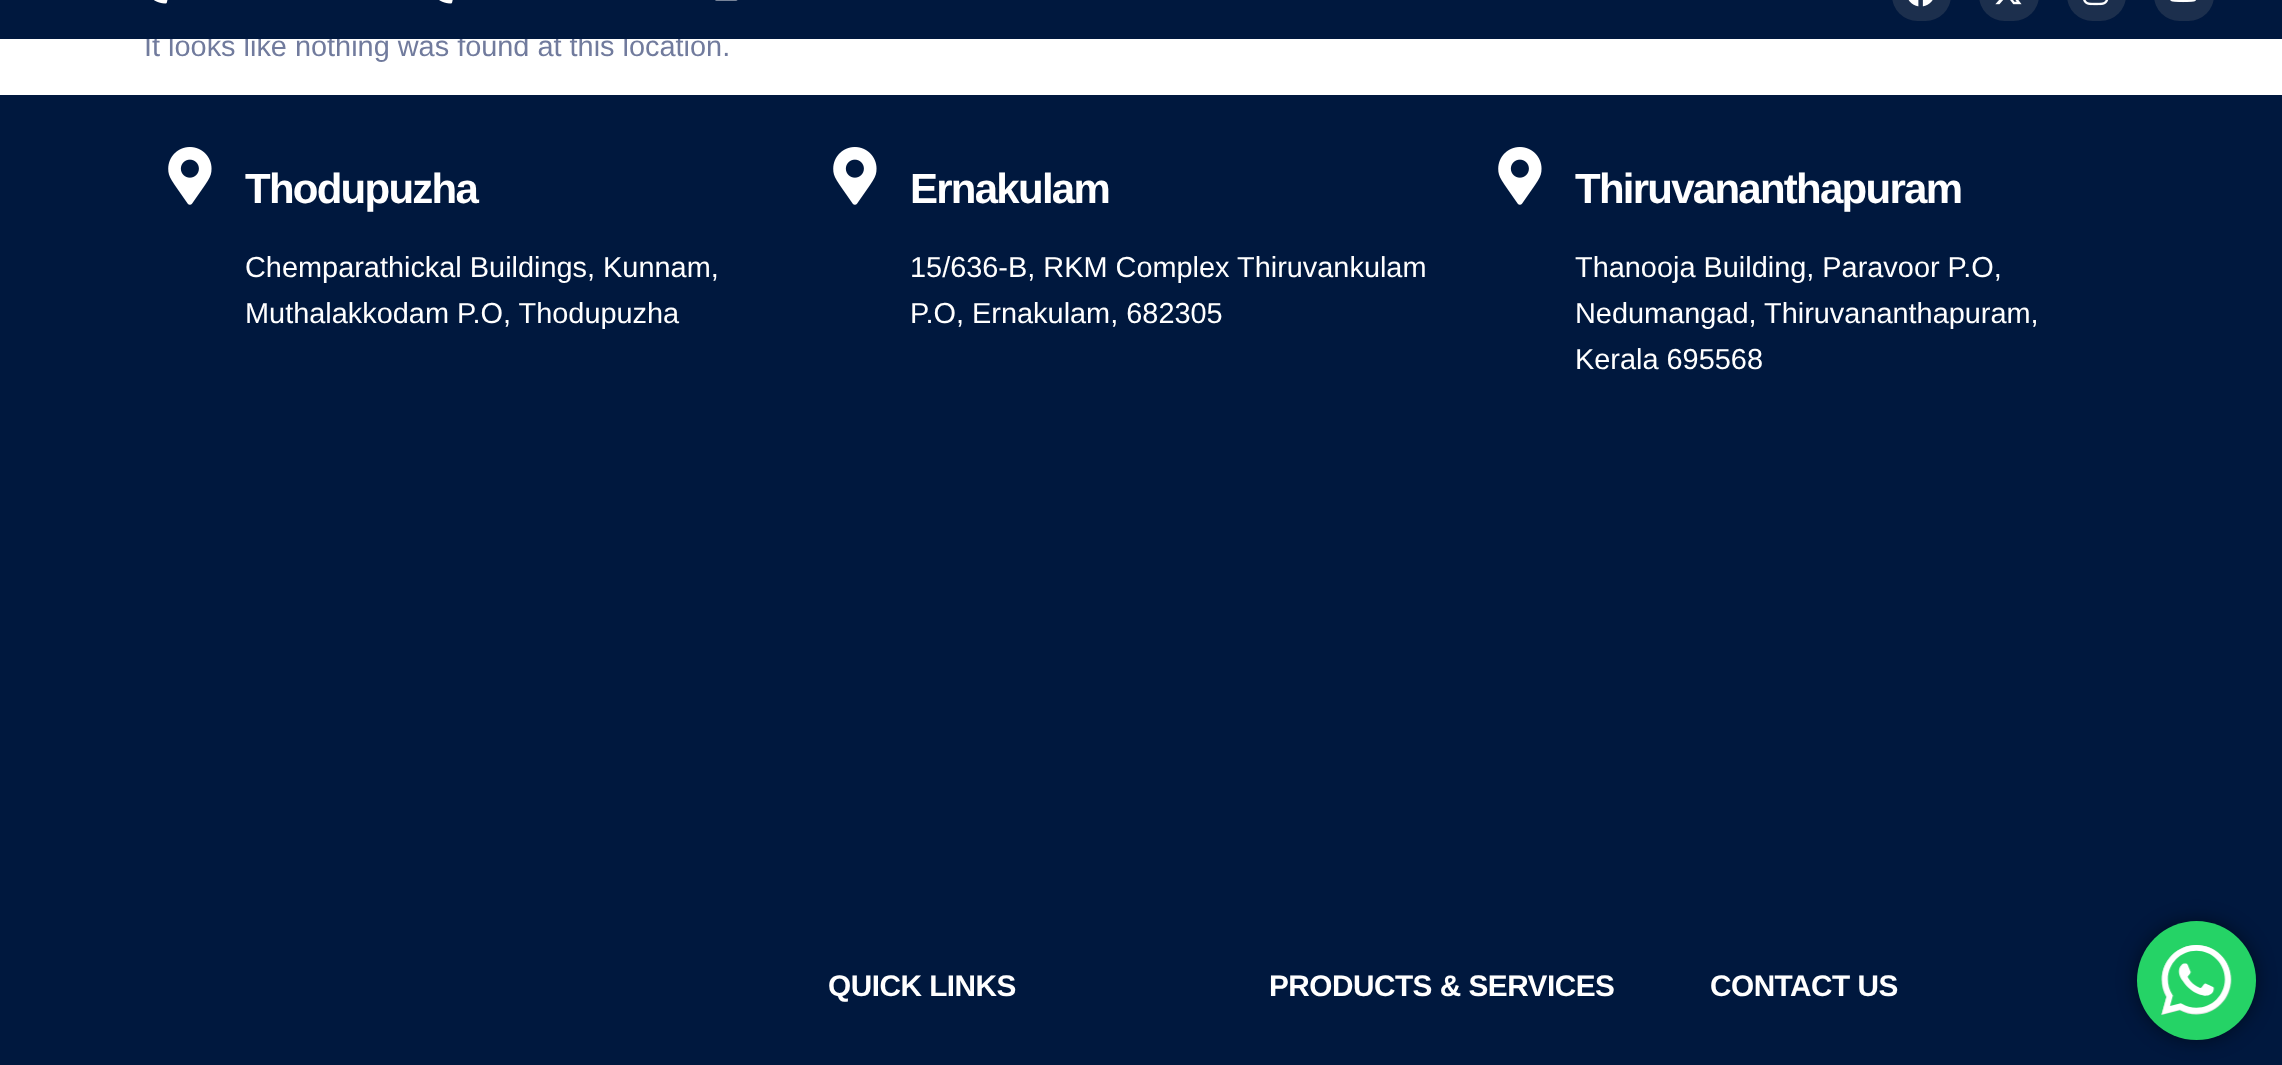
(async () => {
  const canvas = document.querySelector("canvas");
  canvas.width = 2282;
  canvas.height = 1065;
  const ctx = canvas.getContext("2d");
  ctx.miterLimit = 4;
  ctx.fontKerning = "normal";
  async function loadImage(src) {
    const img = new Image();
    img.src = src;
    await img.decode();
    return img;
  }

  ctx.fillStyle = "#ffffff";
  ctx.fillRect(0, 0, 2282, 1065);
  ctx.fillStyle = "#00183e";
  ctx.fillRect(0, 95, 2282, 970);
  ctx.drawImage(await loadImage("img/8.png"), 168, 147, 44, 58);
  ctx.drawImage(await loadImage("img/8.png"), 833, 147, 44, 58);
  ctx.drawImage(await loadImage("img/8.png"), 1498, 147, 44, 58);
  ctx.fillStyle = "rgba(0, 0, 0, 0.5)";
  ctx.filter = "blur(9.5px)";
  ctx.beginPath();
  ctx.roundRect(2137, 921, 119, 119, 59.5);
  ctx.fill();
  ctx.filter = "none";
  ctx.fillStyle = "#25d366";
  ctx.beginPath();
  ctx.arc(2196.5, 980.5, 59.5, 0, Math.PI * 2);
  ctx.fill();
  ctx.drawImage(await loadImage("img/9.png"), 2161, 945, 71, 70);
  ctx.font = "28.9px Liberation Sans";
  ctx.fillStyle = "#717b9d";
  ctx.fillText("It looks like nothing was found at this location.", 144, 56);
  ctx.fillStyle = "#00183e";
  ctx.fillRect(0, 0, 2282, 39);
  ctx.fillStyle = "#1c2f4d";
  ctx.beginPath();
  ctx.roundRect(2154, -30, 60, 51, 29.5);
  ctx.fill();
  ctx.drawImage(await loadImage("img/7.png"), 2170, 0, 26, 3);
  ctx.beginPath();
  ctx.roundRect(2067, -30, 59, 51, 29.5);
  ctx.fill();
  ctx.drawImage(await loadImage("img/6.png"), 2083, 0, 26, 6);
  ctx.beginPath();
  ctx.roundRect(1979, -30, 60, 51, 29.5);
  ctx.fill();
  ctx.drawImage(await loadImage("img/5.png"), 1995, 0, 27, 5);
  ctx.beginPath();
  ctx.roundRect(1892, -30, 59, 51, 29.5);
  ctx.fill();
  ctx.drawImage(await loadImage("img/4.png"), 1908, 0, 25, 7);
  ctx.drawImage(await loadImage("img/3.png"), 715, 0, 23, 1);
  ctx.drawImage(await loadImage("img/2.png"), 439, 0, 14, 4);
  ctx.drawImage(await loadImage("img/1.png"), 154, 0, 14, 4);
  ctx.letterSpacing = "-1.75px";
  ctx.font = "bold 42px Liberation Sans";
  ctx.fillStyle = "#ffffff";
  ctx.fillText("Thodupuzha", 245, 203);
  ctx.letterSpacing = "0px";
  ctx.font = "28.9px Liberation Sans";
  ctx.fillText("Chemparathickal Buildings, Kunnam,", 245, 277);
  ctx.fillText("Muthalakkodam P.O, Thodupuzha", 245, 323);
  ctx.letterSpacing = "-1.75px";
  ctx.font = "bold 42px Liberation Sans";
  ctx.fillText("Ernakulam", 910, 203);
  ctx.letterSpacing = "0px";
  ctx.font = "28.9px Liberation Sans";
  ctx.fillText("15/636-B, RKM Complex Thiruvankulam", 910, 277);
  ctx.fillText("P.O, Ernakulam, 682305", 910, 323);
  ctx.letterSpacing = "-1.75px";
  ctx.font = "bold 42px Liberation Sans";
  ctx.fillText("Thiruvananthapuram", 1575, 203);
  ctx.letterSpacing = "0px";
  ctx.font = "28.9px Liberation Sans";
  for (const [text, x, y] of [
    ["Thanooja Building, Paravoor P.O,", 1575, 277],
    ["Nedumangad, Thiruvananthapuram,", 1575, 323],
    ["Kerala 695568", 1575, 369],
  ]) {
    ctx.fillText(text, x, y);
  }
  ctx.letterSpacing = "-0.5px";
  ctx.font = "bold 29.75px Liberation Sans";
  for (const [text, x, y] of [
    ["QUICK LINKS", 828, 996],
    ["PRODUCTS & SERVICES", 1269, 996],
    ["CONTACT US", 1710, 996],
  ]) {
    ctx.fillText(text, x, y);
  }
})();
